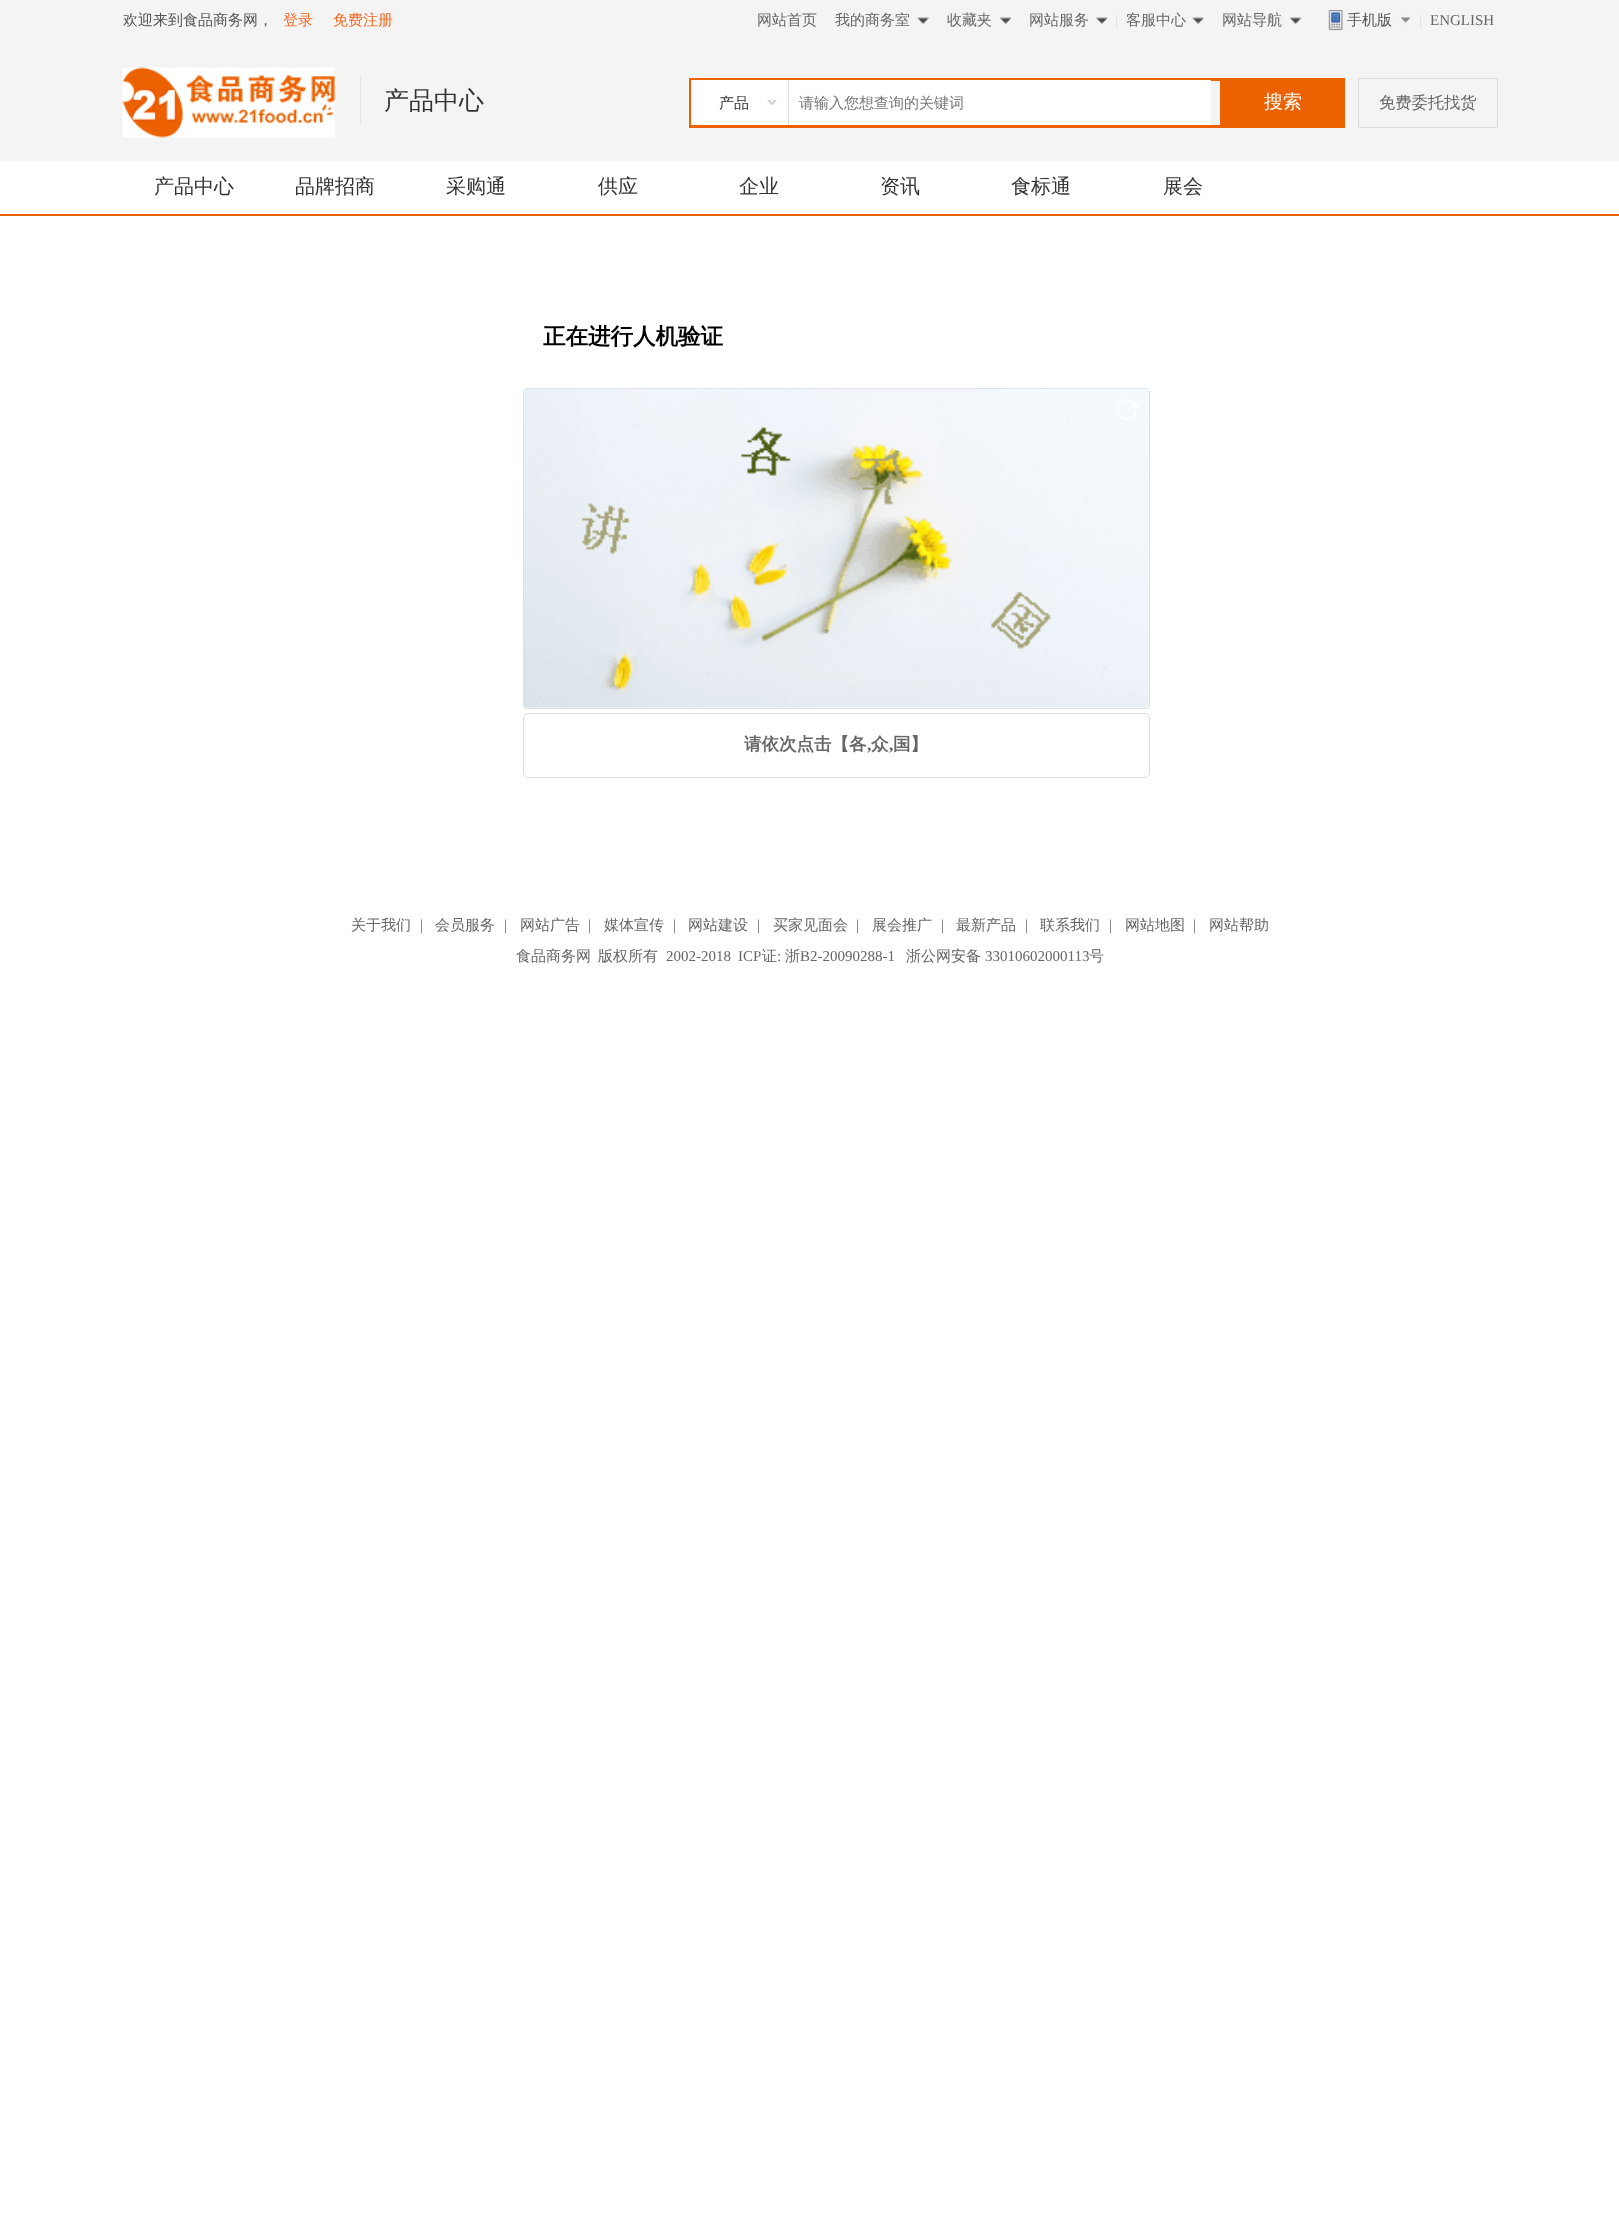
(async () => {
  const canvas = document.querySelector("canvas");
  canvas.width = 1619;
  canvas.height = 2228;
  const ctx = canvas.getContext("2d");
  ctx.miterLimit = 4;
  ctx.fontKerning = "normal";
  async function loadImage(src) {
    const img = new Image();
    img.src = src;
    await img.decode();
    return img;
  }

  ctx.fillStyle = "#ffffff";
  ctx.fillRect(0, 0, 1619, 2228);
  ctx.fillStyle = "#f4f4f4";
  ctx.fillRect(0, 0, 1619, 161);
  ctx.drawImage(await loadImage("img/1.png"), 917, 17, 12, 7);
  ctx.drawImage(await loadImage("img/2.png"), 1000, 17, 12, 7);
  ctx.drawImage(await loadImage("img/3.png"), 1096, 17, 12, 7);
  ctx.drawImage(await loadImage("img/1.png"), 1192, 17, 12, 7);
  ctx.drawImage(await loadImage("img/2.png"), 1290, 17, 12, 7);
  ctx.drawImage(await loadImage("img/4.png"), 1328, 10, 83, 21);
  ctx.drawImage(await loadImage("img/5.png"), 122, 67, 213, 71);
  ctx.fillStyle = "#e5e5e5";
  ctx.fillRect(360, 75, 1, 50);
  ctx.strokeStyle = "#ec6100";
  ctx.lineWidth = 3;
  ctx.strokeRect(690.5, 79.5, 653, 47);
  ctx.fillStyle = "#ffffff";
  ctx.fillRect(691, 80, 97, 45);
  ctx.fillStyle = "#dddddd";
  ctx.fillRect(788, 80, 1, 45);
  ctx.drawImage(await loadImage("img/6.png"), 767, 100, 10, 5);
  ctx.fillStyle = "#ffffff";
  ctx.fillRect(789, 80, 422, 45);
  ctx.fillStyle = "#ec6100";
  ctx.fillRect(1220, 81, 122, 44);
  ctx.strokeStyle = "#dcdcdc";
  ctx.lineWidth = 1;
  ctx.strokeRect(1358.5, 78.5, 139, 49);
  ctx.fillRect(0, 214, 1619, 2);
  ctx.beginPath();
  ctx.roundRect(523.5, 388.5, 626, 320, 3.5);
  ctx.strokeStyle = "#dddddd";
  ctx.stroke();
  ctx.drawImage(await loadImage("img/7.png"), 523, 388, 626, 320);
  ctx.drawImage(await loadImage("img/8.png"), 1117, 399, 21, 21);
  ctx.beginPath();
  ctx.roundRect(523.5, 713.5, 626, 64, 4.5);
  ctx.stroke();
  ctx.font = "500 15px WenQuanYi Zen Hei";
  ctx.fillStyle = "#555555";
  ctx.fillText("欢迎来到食品商务网，", 123, 25);
  ctx.fillStyle = "#f46722";
  ctx.fillText("登录", 283, 25);
  ctx.fillText("免费注册", 333, 25);
  ctx.fillStyle = "#666666";
  for (const [text, x, y] of [
    ["网站首页", 757, 25],
    ["我的商务室", 835, 25],
    ["收藏夹", 947, 25],
    ["网站服务", 1029, 25],
  ]) {
    ctx.fillText(text, x, y);
  }
  ctx.font = "15px Liberation Serif";
  ctx.fillStyle = "#dddddd";
  ctx.fillText("|", 1115, 25);
  ctx.font = "500 15px WenQuanYi Zen Hei";
  ctx.fillStyle = "#666666";
  ctx.fillText("客服中心", 1126, 25);
  ctx.fillText("网站导航", 1222, 25);
  ctx.fillStyle = "#555555";
  ctx.fillText("手机版", 1347, 25);
  ctx.font = "15px Liberation Serif";
  ctx.fillStyle = "#dddddd";
  ctx.fillText("|", 1419, 25);
  ctx.fillStyle = "#666666";
  ctx.fillText("ENGLISH", 1430, 25);
  ctx.font = "500 25px WenQuanYi Zen Hei";
  ctx.fillStyle = "#333333";
  ctx.fillText("产品中心", 384, 109);
  ctx.font = "500 15px WenQuanYi Zen Hei";
  ctx.fillText("产品", 719, 108);
  ctx.fillStyle = "#757575";
  ctx.fillText("请输入您想查询的关键词", 799, 108);
  ctx.font = "500 19px WenQuanYi Zen Hei";
  ctx.fillStyle = "#ffffff";
  ctx.fillText("搜索", 1264, 108);
  ctx.font = "500 16.25px WenQuanYi Zen Hei";
  ctx.fillStyle = "#666666";
  ctx.fillText("免费委托找货", 1379, 108);
  ctx.font = "500 20px WenQuanYi Zen Hei";
  ctx.fillStyle = "#333333";
  for (const [text, x, y] of [
    ["产品中心", 154, 193],
    ["品牌招商", 295, 193],
    ["采购通", 446, 193],
    ["供应", 598, 193],
    ["企业", 739, 193],
    ["资讯", 880, 193],
    ["食标通", 1011, 193],
    ["展会", 1163, 193],
  ]) {
    ctx.fillText(text, x, y);
  }
  ctx.font = "bold 22.5px WenQuanYi Zen Hei";
  ctx.fillStyle = "#000000";
  ctx.fillText("正在进行人机验证", 543, 344);
  ctx.font = "bold 17.5px WenQuanYi Zen Hei";
  ctx.fillStyle = "#666666";
  ctx.fillText("请依次点击【各", 744, 750);
  ctx.font = "bold 17.5px Liberation Serif";
  ctx.fillText(",", 867, 750);
  ctx.font = "bold 17.5px WenQuanYi Zen Hei";
  ctx.fillText("众", 871, 750);
  ctx.font = "bold 17.5px Liberation Serif";
  ctx.fillText(",", 889, 750);
  ctx.font = "bold 17.5px WenQuanYi Zen Hei";
  ctx.fillText("国】", 893, 750);
  ctx.font = "500 15px WenQuanYi Zen Hei";
  ctx.fillText("关于我们", 351, 930);
  ctx.font = "15px Liberation Serif";
  ctx.fillText("|", 420, 930);
  ctx.font = "500 15px WenQuanYi Zen Hei";
  ctx.fillText("会员服务", 435, 930);
  ctx.font = "15px Liberation Serif";
  ctx.fillText("|", 504, 930);
  ctx.font = "500 15px WenQuanYi Zen Hei";
  ctx.fillText("网站广告", 520, 930);
  ctx.font = "15px Liberation Serif";
  ctx.fillText("|", 588, 930);
  ctx.font = "500 15px WenQuanYi Zen Hei";
  ctx.fillText("媒体宣传", 604, 930);
  ctx.font = "15px Liberation Serif";
  ctx.fillText("|", 673, 930);
  ctx.font = "500 15px WenQuanYi Zen Hei";
  ctx.fillText("网站建设", 688, 930);
  ctx.font = "15px Liberation Serif";
  ctx.fillText("|", 757, 930);
  ctx.font = "500 15px WenQuanYi Zen Hei";
  ctx.fillText("买家见面会", 773, 930);
  ctx.font = "15px Liberation Serif";
  ctx.fillText("|", 856, 930);
  ctx.font = "500 15px WenQuanYi Zen Hei";
  ctx.fillText("展会推广", 872, 930);
  ctx.font = "15px Liberation Serif";
  ctx.fillText("|", 941, 930);
  ctx.font = "500 15px WenQuanYi Zen Hei";
  ctx.fillText("最新产品", 956, 930);
  ctx.font = "15px Liberation Serif";
  ctx.fillText("|", 1025, 930);
  ctx.font = "500 15px WenQuanYi Zen Hei";
  ctx.fillText("联系我们", 1040, 930);
  ctx.font = "15px Liberation Serif";
  ctx.fillText("|", 1109, 930);
  ctx.font = "500 15px WenQuanYi Zen Hei";
  ctx.fillText("网站地图", 1125, 930);
  ctx.font = "15px Liberation Serif";
  ctx.fillText("|", 1193, 930);
  ctx.font = "500 15px WenQuanYi Zen Hei";
  for (const [text, x, y] of [
    ["网站帮助", 1209, 930],
    ["食品商务网", 516, 961],
    ["版权所有", 598, 961],
  ]) {
    ctx.fillText(text, x, y);
  }
  ctx.font = "15px Liberation Serif";
  ctx.fillText("2002-2018", 666, 961);
  ctx.fillText("ICP", 738, 961);
  ctx.font = "500 15px WenQuanYi Zen Hei";
  ctx.fillText("证", 762, 961);
  ctx.font = "15px Liberation Serif";
  ctx.fillText(":", 777, 961);
  ctx.font = "500 15px WenQuanYi Zen Hei";
  ctx.fillText("浙", 785, 961);
  ctx.font = "15px Liberation Serif";
  ctx.fillText("B2-20090288-1", 800, 961);
  ctx.font = "500 15px WenQuanYi Zen Hei";
  ctx.fillText("浙公网安备", 906, 961);
  ctx.font = "15px Liberation Serif";
  ctx.fillText("33010602000113", 985, 961);
  ctx.font = "500 15px WenQuanYi Zen Hei";
  ctx.fillText("号", 1089, 961);
})();
